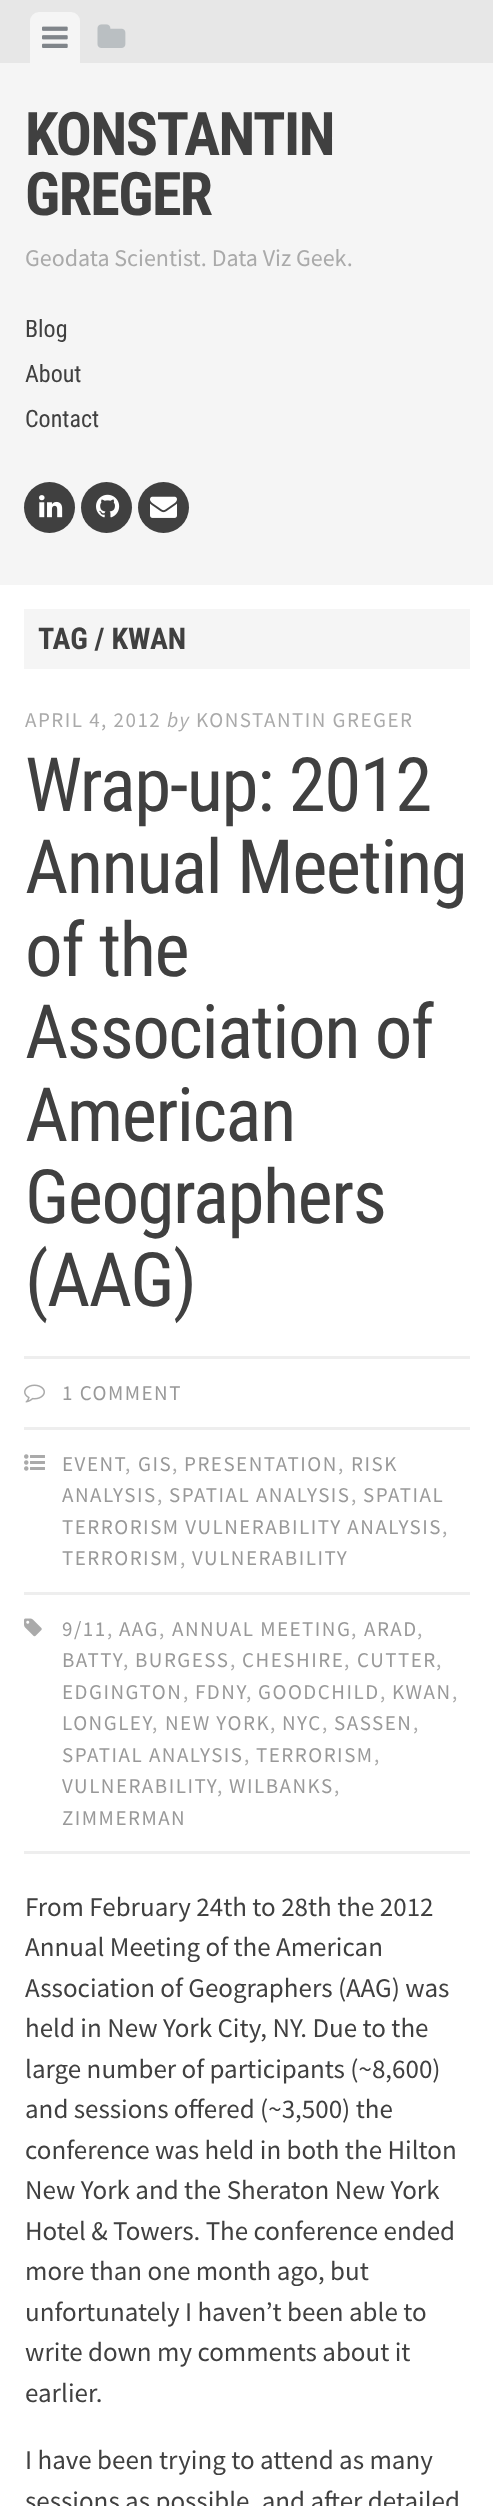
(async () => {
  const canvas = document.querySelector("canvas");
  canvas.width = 493;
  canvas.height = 2506;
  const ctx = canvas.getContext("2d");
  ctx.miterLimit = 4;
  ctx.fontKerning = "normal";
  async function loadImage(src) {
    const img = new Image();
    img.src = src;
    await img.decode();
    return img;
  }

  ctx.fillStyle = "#ffffff";
  ctx.fillRect(0, 0, 493, 2506);
  ctx.fillStyle = "#f5f5f5";
  ctx.fillRect(0, 63, 493, 522);
  ctx.fillStyle = "#e7e7e7";
  ctx.fillRect(0, 0, 493, 63);
  ctx.fillStyle = "#f5f5f5";
  ctx.beginPath();
  ctx.roundRect(30, 12, 50, 51, [9, 9, 0, 0]);
  ctx.fill();
  ctx.drawImage(await loadImage("img/1.png"), 42, 26, 26, 22);
  ctx.drawImage(await loadImage("img/2.png"), 97, 24, 29, 24);
  ctx.fillStyle = "#404040";
  ctx.beginPath();
  ctx.arc(49.5, 507.5, 25.5, 0, Math.PI * 2);
  ctx.fill();
  ctx.drawImage(await loadImage("img/3.png"), 39, 495, 24, 23);
  ctx.beginPath();
  ctx.arc(106.5, 507.5, 25.5, 0, Math.PI * 2);
  ctx.fill();
  ctx.drawImage(await loadImage("img/4.png"), 96, 494, 24, 24);
  ctx.beginPath();
  ctx.arc(163.5, 507.5, 25.5, 0, Math.PI * 2);
  ctx.fill();
  ctx.drawImage(await loadImage("img/5.png"), 150, 496, 27, 22);
  for (const [x, y, w, h, color] of [
    [24, 609, 446, 60, "#f5f5f5"],
    [24, 1356, 446, 3, "#eeeeee"],
    [24, 1427, 446, 3, "#eeeeee"],
  ]) {
    ctx.fillStyle = color;
    ctx.fillRect(x, y, w, h);
  }
  ctx.drawImage(await loadImage("img/6.png"), 24, 1384, 21, 19);
  ctx.fillRect(24, 1592, 446, 3);
  ctx.drawImage(await loadImage("img/7.png"), 24, 1454, 21, 17);
  ctx.fillRect(24, 1851, 446, 3);
  ctx.drawImage(await loadImage("img/8.png"), 24, 1618, 18, 19);
  ctx.letterSpacing = "-1.5px";
  ctx.font = "bold 60px Roboto Condensed";
  ctx.fillStyle = "#404040";
  ctx.fillText("KONSTANTIN", 25, 155);
  ctx.fillText("GREGER", 25, 215);
  ctx.letterSpacing = "0px";
  ctx.font = "24px Source Sans Pro";
  ctx.fillStyle = "#aaaaaa";
  ctx.fillText("Geodata Scientist. Data Viz Geek.", 25, 266);
  ctx.font = "24px Roboto Condensed";
  ctx.fillStyle = "#404040";
  for (const [text, x, y] of [
    ["Blog", 25, 337],
    ["About", 25, 382],
    ["Contact", 25, 427],
  ]) {
    ctx.fillText(text, x, y);
  }
  ctx.font = "bold 30px Roboto Condensed";
  ctx.fillText("TAG / KWAN", 38, 649);
  ctx.letterSpacing = "1.5px";
  ctx.font = "21px Source Sans Pro";
  ctx.fillStyle = "#aaaaaa";
  ctx.fillText("APRIL 4, 2012", 25, 727);
  ctx.font = "italic 21px Source Sans Pro";
  ctx.fillText("by", 167, 727);
  ctx.font = "21px Source Sans Pro";
  ctx.fillText("KONSTANTIN GREGER", 196, 727);
  ctx.letterSpacing = "-1.5px";
  ctx.font = "75px Roboto Condensed";
  ctx.fillStyle = "#404040";
  for (const [text, x, y] of [
    ["Wrap-up: 2012", 25, 811],
    ["Annual Meeting", 25, 893],
    ["of the", 25, 976],
    ["Association of", 25, 1058],
    ["American", 25, 1141],
    ["Geographers", 25, 1223],
    ["(AAG)", 25, 1306],
  ]) {
    ctx.fillText(text, x, y);
  }
  ctx.letterSpacing = "1.5px";
  ctx.font = "21px Source Sans Pro";
  ctx.fillStyle = "#999999";
  ctx.fillText("1 COMMENT", 62, 1400);
  ctx.fillText("EVENT", 62, 1471);
  ctx.fillStyle = "#aaaaaa";
  ctx.fillText(",", 125, 1471);
  ctx.fillStyle = "#999999";
  ctx.fillText("GIS", 138, 1471);
  ctx.fillStyle = "#aaaaaa";
  ctx.fillText(",", 172, 1471);
  ctx.fillStyle = "#999999";
  ctx.fillText("PRESENTATION", 184, 1471);
  ctx.fillStyle = "#aaaaaa";
  ctx.fillText(",", 338, 1471);
  ctx.fillStyle = "#999999";
  ctx.fillText("RISK", 351, 1471);
  ctx.fillText("ANALYSIS", 62, 1502);
  ctx.fillStyle = "#aaaaaa";
  ctx.fillText(",", 157, 1502);
  ctx.fillStyle = "#999999";
  ctx.fillText("SPATIAL ANALYSIS", 169, 1502);
  ctx.fillStyle = "#aaaaaa";
  ctx.fillText(",", 351, 1502);
  ctx.fillStyle = "#999999";
  ctx.fillText("SPATIAL", 363, 1502);
  ctx.fillText("TERRORISM VULNERABILITY ANALYSIS", 62, 1534);
  ctx.fillStyle = "#aaaaaa";
  ctx.fillText(",", 442, 1534);
  ctx.fillStyle = "#999999";
  ctx.fillText("TERRORISM", 62, 1565);
  ctx.fillStyle = "#aaaaaa";
  ctx.fillText(",", 180, 1565);
  ctx.fillStyle = "#999999";
  ctx.fillText("VULNERABILITY", 192, 1565);
  ctx.fillText("9/11", 62, 1636);
  ctx.fillStyle = "#aaaaaa";
  ctx.fillText(",", 107, 1636);
  ctx.fillStyle = "#999999";
  ctx.fillText("AAG", 119, 1636);
  ctx.fillStyle = "#aaaaaa";
  ctx.fillText(",", 159, 1636);
  ctx.fillStyle = "#999999";
  ctx.fillText("ANNUAL MEETING", 172, 1636);
  ctx.fillStyle = "#aaaaaa";
  ctx.fillText(",", 351, 1636);
  ctx.fillStyle = "#999999";
  ctx.fillText("ARAD", 364, 1636);
  ctx.fillStyle = "#aaaaaa";
  ctx.fillText(",", 417, 1636);
  ctx.fillStyle = "#999999";
  ctx.fillText("BATTY", 62, 1667);
  ctx.fillStyle = "#aaaaaa";
  ctx.fillText(",", 123, 1667);
  ctx.fillStyle = "#999999";
  ctx.fillText("BURGESS", 135, 1667);
  ctx.fillStyle = "#aaaaaa";
  ctx.fillText(",", 230, 1667);
  ctx.fillStyle = "#999999";
  ctx.fillText("CHESHIRE", 242, 1667);
  ctx.fillStyle = "#aaaaaa";
  ctx.fillText(",", 344, 1667);
  ctx.fillStyle = "#999999";
  ctx.fillText("CUTTER", 357, 1667);
  ctx.fillStyle = "#aaaaaa";
  ctx.fillText(",", 436, 1667);
  ctx.fillStyle = "#999999";
  ctx.fillText("EDGINGTON", 62, 1699);
  ctx.fillStyle = "#aaaaaa";
  ctx.fillText(",", 183, 1699);
  ctx.fillStyle = "#999999";
  ctx.fillText("FDNY", 195, 1699);
  ctx.fillStyle = "#aaaaaa";
  ctx.fillText(",", 246, 1699);
  ctx.fillStyle = "#999999";
  ctx.fillText("GOODCHILD", 258, 1699);
  ctx.fillStyle = "#aaaaaa";
  ctx.fillText(",", 380, 1699);
  ctx.fillStyle = "#999999";
  ctx.fillText("KWAN", 392, 1699);
  ctx.fillStyle = "#aaaaaa";
  ctx.fillText(",", 452, 1699);
  ctx.fillStyle = "#999999";
  ctx.fillText("LONGLEY", 62, 1730);
  ctx.fillStyle = "#aaaaaa";
  ctx.fillText(",", 152, 1730);
  ctx.fillStyle = "#999999";
  ctx.fillText("NEW YORK", 165, 1730);
  ctx.fillStyle = "#aaaaaa";
  ctx.fillText(",", 270, 1730);
  ctx.fillStyle = "#999999";
  ctx.fillText("NYC", 282, 1730);
  ctx.fillStyle = "#aaaaaa";
  ctx.fillText(",", 322, 1730);
  ctx.fillStyle = "#999999";
  ctx.fillText("SASSEN", 334, 1730);
  ctx.fillStyle = "#aaaaaa";
  ctx.fillText(",", 413, 1730);
  ctx.fillStyle = "#999999";
  ctx.fillText("SPATIAL ANALYSIS", 62, 1762);
  ctx.fillStyle = "#aaaaaa";
  ctx.fillText(",", 244, 1762);
  ctx.fillStyle = "#999999";
  ctx.fillText("TERRORISM", 256, 1762);
  ctx.fillStyle = "#aaaaaa";
  ctx.fillText(",", 374, 1762);
  ctx.fillStyle = "#999999";
  ctx.fillText("VULNERABILITY", 62, 1793);
  ctx.fillStyle = "#aaaaaa";
  ctx.fillText(",", 217, 1793);
  ctx.fillStyle = "#999999";
  ctx.fillText("WILBANKS", 229, 1793);
  ctx.fillStyle = "#aaaaaa";
  ctx.fillText(",", 334, 1793);
  ctx.fillStyle = "#999999";
  ctx.fillText("ZIMMERMAN", 62, 1825);
  ctx.letterSpacing = "0px";
  ctx.font = "27px Source Sans Pro";
  ctx.fillStyle = "#404040";
  for (const [text, x, y] of [
    ["From February 24th to 28th the 2012", 25, 1916],
    ["Annual Meeting of the American", 25, 1956],
    ["Association of Geographers (AAG) was", 25, 1997],
    ["held in New York City, NY. Due to the", 25, 2037],
    ["large number of participants (~8,600)", 25, 2078],
    ["and sessions offered (~3,500) the", 25, 2118],
    ["conference was held in both the Hilton", 25, 2159],
    ["New York and the Sheraton New York", 25, 2199],
    ["Hotel & Towers. The conference ended", 25, 2240],
    ["more than one month ago, but", 25, 2280],
    ["unfortunately I haven’t been able to", 25, 2321],
    ["write down my comments about it", 25, 2361],
    ["earlier.", 25, 2402],
    ["I have been trying to attend as many", 25, 2469],
    ["sessions as possible, and after detailed", 25, 2510],
  ]) {
    ctx.fillText(text, x, y);
  }
})();
